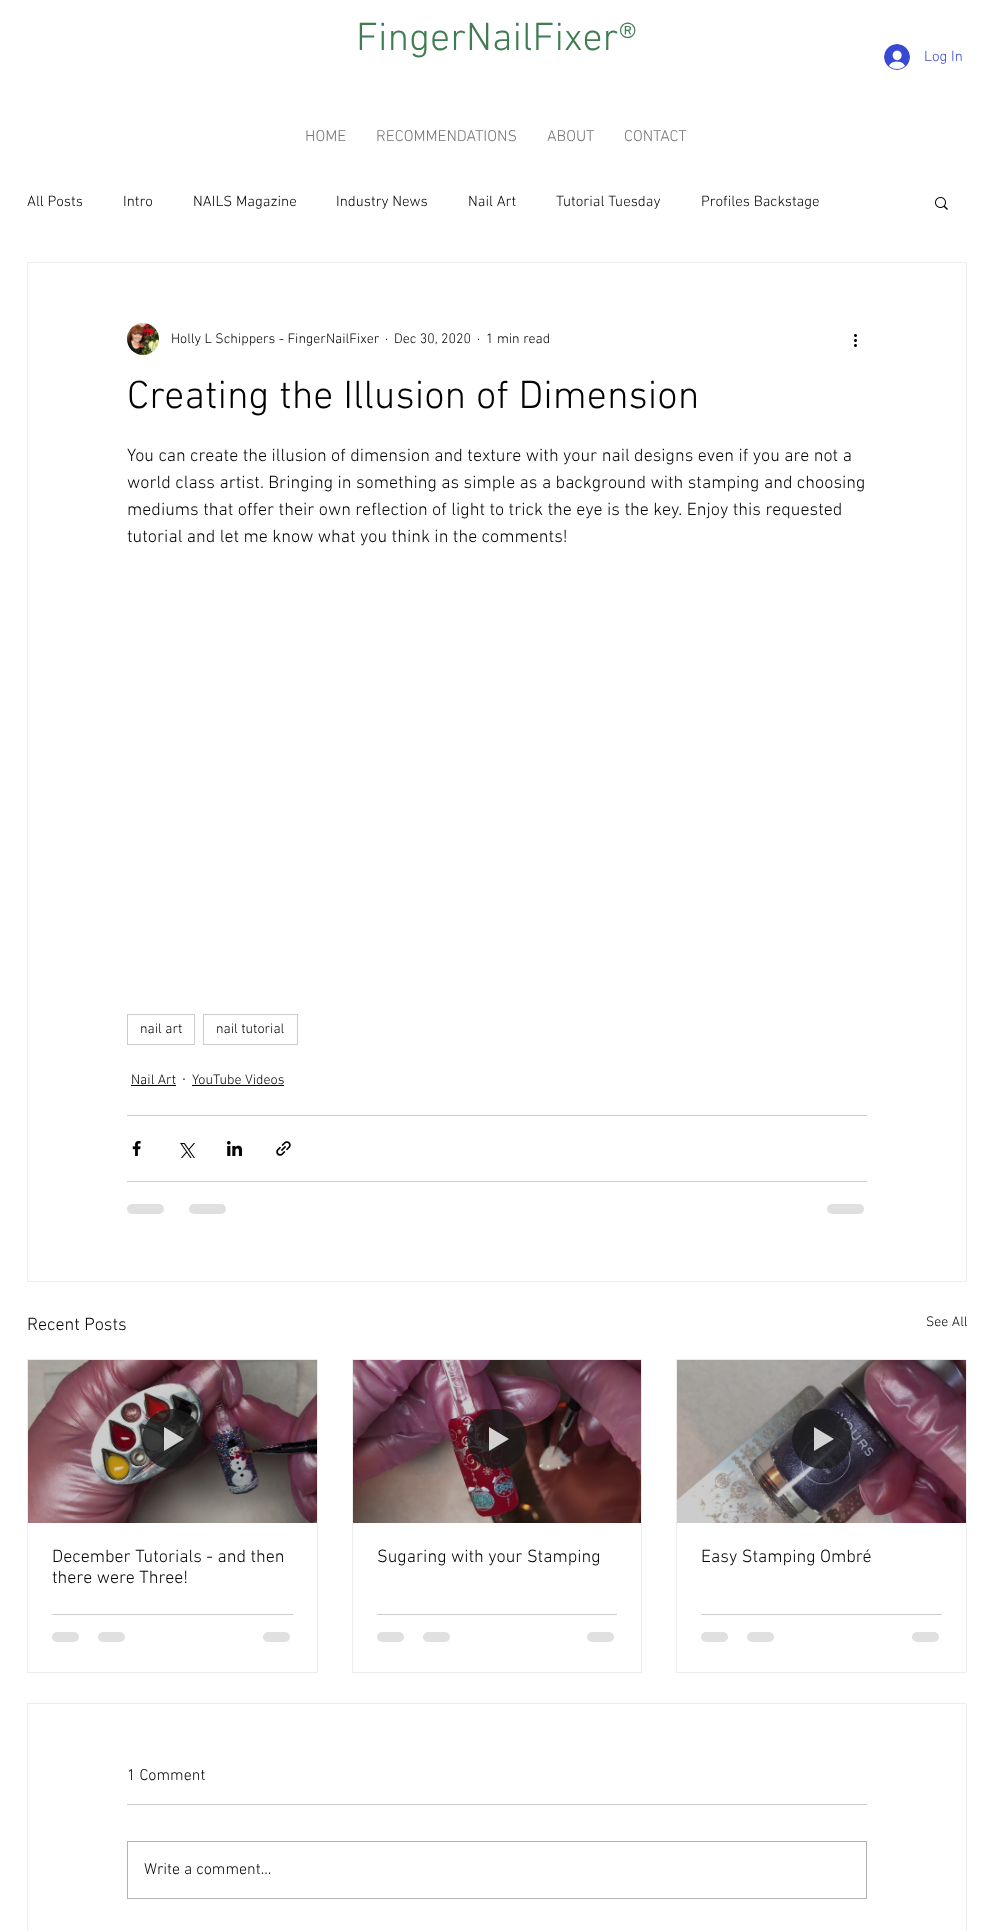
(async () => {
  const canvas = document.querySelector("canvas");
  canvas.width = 994;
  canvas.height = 1931;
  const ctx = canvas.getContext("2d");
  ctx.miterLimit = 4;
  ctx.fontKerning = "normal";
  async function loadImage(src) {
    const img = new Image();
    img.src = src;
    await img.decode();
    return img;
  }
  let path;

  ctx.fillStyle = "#ffffff";
  ctx.fillRect(0, 0, 994, 1931);
  ctx.drawImage(await loadImage("img/1.png"), 884, 44, 26, 26);
  ctx.drawImage(await loadImage("img/2.png"), 935, 197, 13, 13);
  ctx.strokeStyle = "#eeecec";
  ctx.strokeRect(27.5, 262.5, 939, 1019);
  ctx.drawImage(await loadImage("img/3.png"), 127, 323, 32, 32);
  ctx.drawImage(await loadImage("img/4.png"), 854, 334, 3, 13);
  ctx.strokeStyle = "#cccccc";
  ctx.strokeRect(127.5, 1014.5, 67, 30);
  ctx.strokeRect(203.5, 1014.5, 94, 30);
  for (const [x, y, w, h, color] of [
    [131, 1085, 45, 1, "#000000"],
    [192, 1085, 92, 1, "#000000"],
    [127, 1115, 740, 1, "#cccccc"],
  ]) {
    ctx.fillStyle = color;
    ctx.fillRect(x, y, w, h);
  }
  ctx.drawImage(await loadImage("img/5.png"), 132, 1141, 9, 15);
  ctx.drawImage(await loadImage("img/6.png"), 180, 1143, 15, 15);
  ctx.drawImage(await loadImage("img/7.png"), 227, 1141, 15, 15);
  ctx.drawImage(await loadImage("img/8.png"), 276, 1141, 15, 15);
  ctx.fillRect(127, 1181, 740, 1);
  ctx.fillStyle = "#e0e0e0";
  ctx.beginPath();
  ctx.roundRect(127, 1204, 37, 10, 5);
  ctx.fill();
  ctx.beginPath();
  ctx.roundRect(189, 1204, 37, 10, 5);
  ctx.fill();
  ctx.beginPath();
  ctx.roundRect(827, 1204, 37, 10, 5);
  ctx.fill();
  ctx.strokeStyle = "#eeecec";
  ctx.strokeRect(27.5, 1359.5, 290, 313);
  ctx.drawImage(await loadImage("img/9.png"), 28, 1360, 289, 163);
  ctx.fillStyle = "rgba(26, 26, 26, 0.8)";
  ctx.beginPath();
  ctx.arc(172, 1439, 30, 0, Math.PI * 2);
  ctx.fill();
  ctx.fillStyle = "rgba(255, 255, 255, 0.8)";
  path = new Path2D("M164 1427V1451L184 1439Z");
  ctx.fill(path);
  ctx.fillStyle = "#cccccc";
  ctx.fillRect(52, 1614, 241, 1);
  ctx.fillStyle = "#e0e0e0";
  ctx.beginPath();
  ctx.roundRect(52, 1632, 27, 10, 5);
  ctx.fill();
  ctx.beginPath();
  ctx.roundRect(98, 1632, 27, 10, 5);
  ctx.fill();
  ctx.beginPath();
  ctx.roundRect(263, 1632, 27, 10, 5);
  ctx.fill();
  ctx.strokeRect(352.5, 1359.5, 289, 313);
  ctx.drawImage(await loadImage("img/10.png"), 353, 1360, 288, 163);
  ctx.fillStyle = "rgba(26, 26, 26, 0.8)";
  ctx.beginPath();
  ctx.arc(497, 1439, 30, 0, Math.PI * 2);
  ctx.fill();
  ctx.fillStyle = "rgba(255, 255, 255, 0.8)";
  path = new Path2D("M489 1427V1451L509 1439Z");
  ctx.fill(path);
  ctx.fillStyle = "#cccccc";
  ctx.fillRect(377, 1614, 240, 1);
  ctx.fillStyle = "#e0e0e0";
  ctx.beginPath();
  ctx.roundRect(377, 1632, 27, 10, 5);
  ctx.fill();
  ctx.beginPath();
  ctx.roundRect(423, 1632, 27, 10, 5);
  ctx.fill();
  ctx.beginPath();
  ctx.roundRect(587, 1632, 27, 10, 5);
  ctx.fill();
  ctx.strokeRect(676.5, 1359.5, 290, 313);
  ctx.drawImage(await loadImage("img/11.png"), 677, 1360, 289, 163);
  ctx.fillStyle = "rgba(26, 26, 26, 0.8)";
  ctx.beginPath();
  ctx.arc(822, 1439, 30, 0, Math.PI * 2);
  ctx.fill();
  ctx.fillStyle = "rgba(255, 255, 255, 0.8)";
  path = new Path2D("M814 1427V1451L834 1439Z");
  ctx.fill(path);
  ctx.fillStyle = "#cccccc";
  ctx.fillRect(701, 1614, 241, 1);
  ctx.fillStyle = "#e0e0e0";
  ctx.beginPath();
  ctx.roundRect(701, 1632, 27, 10, 5);
  ctx.fill();
  ctx.beginPath();
  ctx.roundRect(747, 1632, 27, 10, 5);
  ctx.fill();
  ctx.beginPath();
  ctx.roundRect(912, 1632, 27, 10, 5);
  ctx.fill();
  ctx.strokeRect(27.5, 1703.5, 939, 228);
  ctx.fillStyle = "#cccccc";
  ctx.fillRect(127, 1804, 740, 1);
  ctx.strokeStyle = "#b3b3b3";
  ctx.strokeRect(127.5, 1841.5, 739, 57);
  ctx.font = "300 40px 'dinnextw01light'";
  ctx.fillStyle = "#407c51";
  ctx.fillText("FingerNailFixer®", 356, 50);
  ctx.font = "300 15px 'dinnextw01light'";
  ctx.fillStyle = "#384ad3";
  ctx.fillText("Log In", 924, 61);
  ctx.font = "300 16px 'dinnextw01light'";
  ctx.fillStyle = "#767676";
  for (const [text, x, y] of [
    ["HOME", 305, 141],
    ["RECOMMENDATIONS", 376, 141],
    ["ABOUT", 547, 141],
    ["CONTACT", 624, 141],
  ]) {
    ctx.fillText(text, x, y);
  }
  ctx.font = "300 15px 'dinnextw01light'";
  ctx.fillStyle = "#000000";
  for (const [text, x, y] of [
    ["All Posts", 27, 206],
    ["Intro", 123, 206],
    ["NAILS Magazine", 193, 206],
    ["Industry News", 336, 206],
    ["Nail Art", 468, 206],
    ["Tutorial Tuesday", 556, 206],
    ["Profiles Backstage", 701, 206],
  ]) {
    ctx.fillText(text, x, y);
  }
  ctx.font = "300 14px 'dinnextw01light'";
  for (const [text, x, y] of [
    ["Holly L Schippers - FingerNailFixer", 171, 343],
    ["·", 385, 343],
    ["Dec 30, 2020", 394, 343],
    ["·", 477, 343],
    ["1 min read", 486, 343],
  ]) {
    ctx.fillText(text, x, y);
  }
  ctx.font = "300 40px 'dinnextw01light'";
  ctx.fillText("Creating the Illusion of Dimension", 127, 408);
  ctx.font = "300 18px 'dinnextw01light'";
  for (const [text, x, y] of [
    ["You can create the illusion of dimension and texture with your nail designs even if you are not a", 127, 461],
    ["world class artist. Bringing in something as simple as a background with stamping and choosing", 127, 488],
    ["mediums that offer their own reflection of light to trick the eye is the key. Enjoy this requested", 127, 515],
    ["tutorial and let me know what you think in the comments!", 127, 542],
  ]) {
    ctx.fillText(text, x, y);
  }
  ctx.font = "300 14px 'dinnextw01light'";
  for (const [text, x, y] of [
    ["nail art", 140, 1033],
    ["nail tutorial", 216, 1033],
    ["Nail Art", 131, 1084],
  ]) {
    ctx.fillText(text, x, y);
  }
  ctx.font = "300 18px 'dinnextw01light'";
  ctx.fillText("·", 182, 1084);
  ctx.font = "300 14px 'dinnextw01light'";
  ctx.fillText("YouTube Videos", 192, 1084);
  ctx.font = "300 18px 'dinnextw01light'";
  ctx.fillText("Recent Posts", 27, 1330);
  ctx.font = "300 14px 'dinnextw01light'";
  ctx.fillText("See All", 926, 1326);
  ctx.font = "300 18px 'dinnextw01light'";
  for (const [text, x, y] of [
    ["December Tutorials - and then", 52, 1562],
    ["there were Three!", 52, 1583],
    ["Sugaring with your Stamping", 377, 1562],
    ["Easy Stamping Ombré", 701, 1562],
  ]) {
    ctx.fillText(text, x, y);
  }
  ctx.font = "300 16px 'dinnextw01light'";
  ctx.fillText("1 Comment", 127, 1780);
  ctx.fillText("Write a comment...", 144, 1874);
})();
